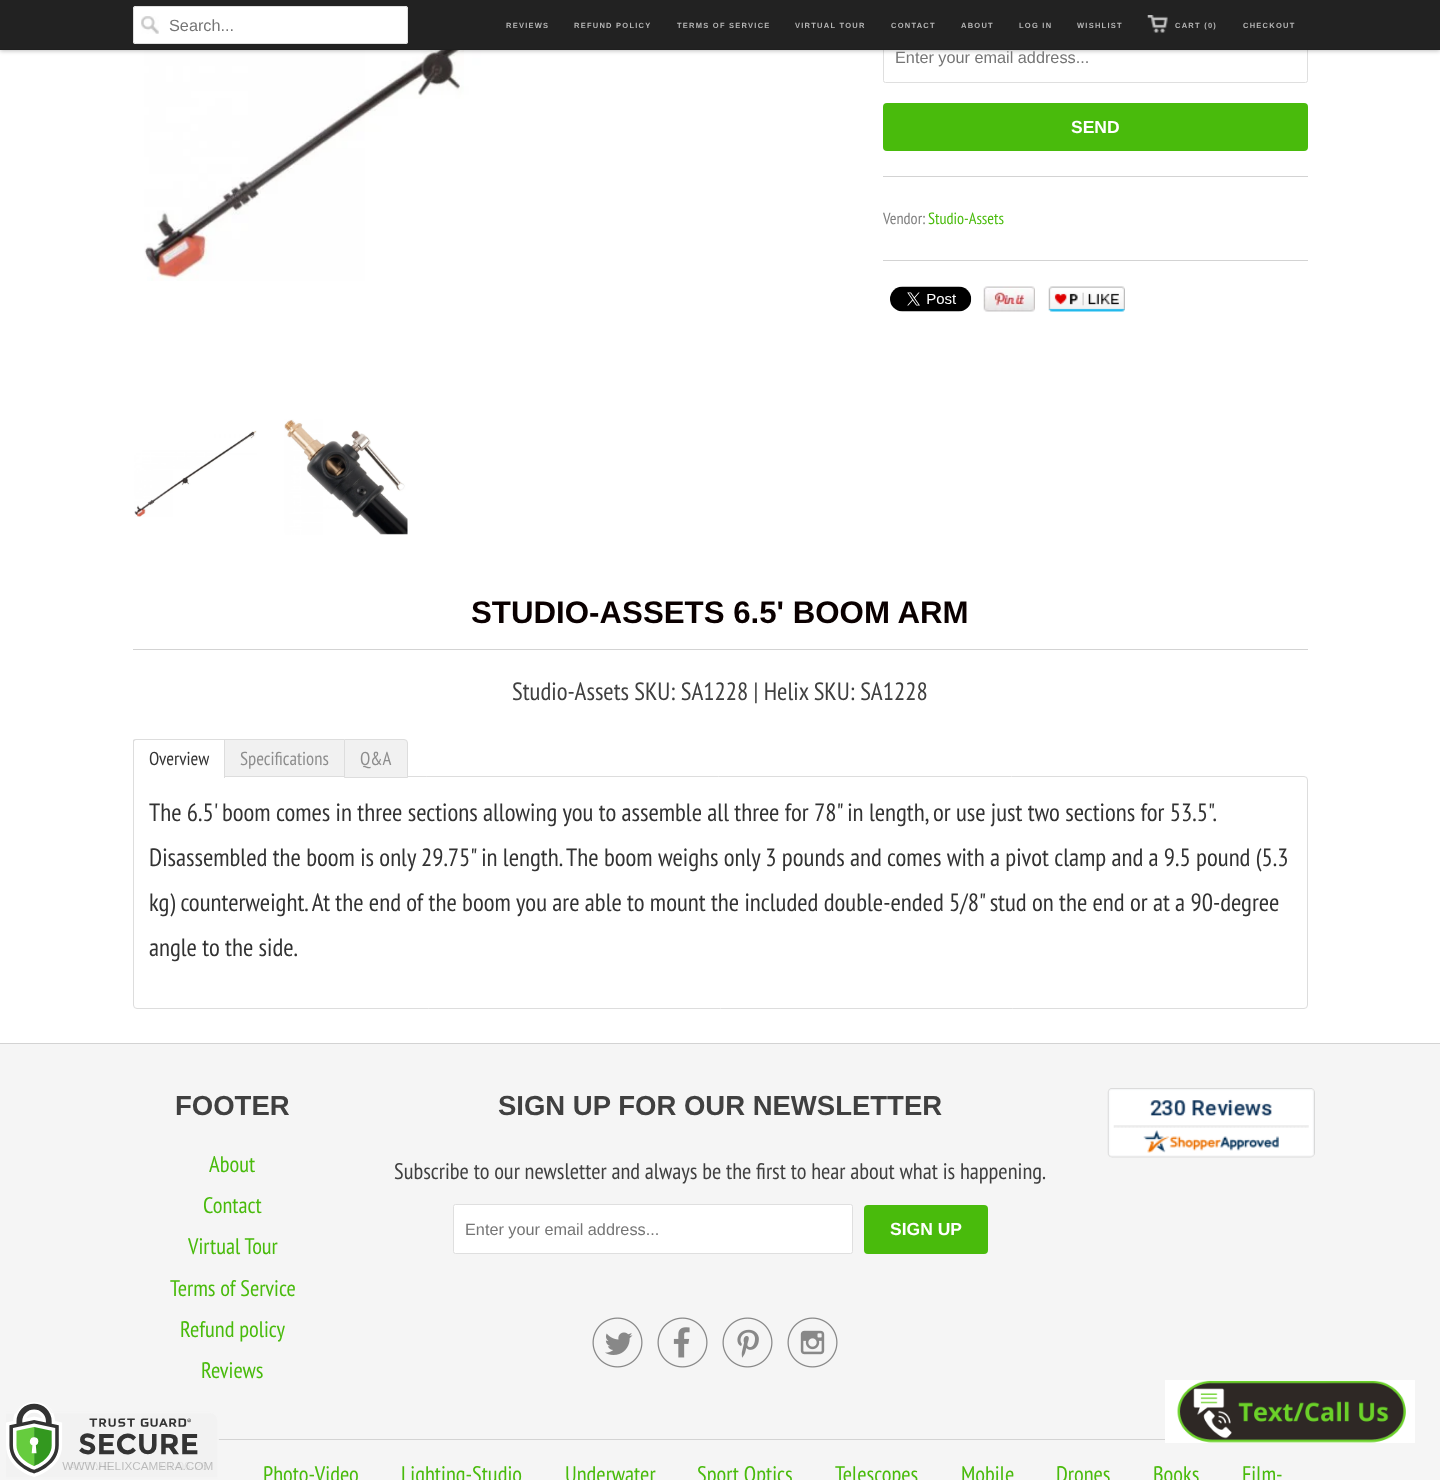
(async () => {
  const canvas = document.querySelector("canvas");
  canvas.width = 1440;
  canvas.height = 1480;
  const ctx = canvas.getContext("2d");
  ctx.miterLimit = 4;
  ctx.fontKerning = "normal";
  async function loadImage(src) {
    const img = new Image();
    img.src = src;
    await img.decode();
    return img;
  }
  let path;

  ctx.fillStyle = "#ffffff";
  ctx.fillRect(0, 0, 1440, 1480);
  ctx.drawImage(await loadImage("img/3.png"), 144, 50, 391, 231);
  ctx.beginPath();
  ctx.roundRect(883.5, 33.5, 424, 49, 2);
  ctx.strokeStyle = "#dfdfdf";
  ctx.stroke();
  ctx.fillStyle = "rgba(0, 0, 0, 0.25)";
  ctx.filter = "blur(2px)";
  ctx.beginPath();
  ctx.rect(0, 1, 1440, 50);
  ctx.fill();
  ctx.filter = "none";
  ctx.fillStyle = "#222222";
  ctx.fillRect(0, 0, 1440, 49);
  ctx.fillStyle = "#1f1f1f";
  ctx.fillRect(0, 49, 1440, 1);
  ctx.fillStyle = "#ffffff";
  ctx.beginPath();
  ctx.roundRect(133, 6, 275, 38, 2.5);
  ctx.fill();
  ctx.drawImage(await loadImage("img/1.png"), 141, 16, 18, 18);
  ctx.beginPath();
  ctx.roundRect(133.5, 6.5, 274, 37, 2);
  ctx.stroke();
  ctx.drawImage(await loadImage("img/2.png"), 1147, 15, 21, 18);
  ctx.drawImage(await loadImage("img/4.png"), 134, 430, 123, 87);
  ctx.drawImage(await loadImage("img/5.png"), 284, 419, 124, 116);
  ctx.fillStyle = "#49bb0c";
  ctx.beginPath();
  ctx.roundRect(883, 103, 425, 48, 4);
  ctx.fill();
  ctx.fillStyle = "#d3d3d3";
  ctx.fillRect(883, 176, 425, 1);
  ctx.fillRect(883, 260, 425, 1);
  ctx.drawImage(await loadImage("img/6.png"), 890, 286, 82, 26);
  ctx.drawImage(await loadImage("img/7.png"), 983, 286, 52, 26);
  ctx.drawImage(await loadImage("img/8.png"), 1048, 286, 77, 26);
  ctx.fillRect(133, 649, 1175, 1);
  ctx.beginPath();
  ctx.roundRect(133.5, 776.5, 1174, 232, [0, 3.5, 3.5, 3.5]);
  ctx.strokeStyle = "#dddddd";
  ctx.stroke();
  ctx.fillStyle = "#ffffff";
  ctx.beginPath();
  ctx.roundRect(134, 740, 90, 38, [2.5, 0, 0, 0]);
  ctx.fill();
  ctx.save();
  ctx.beginPath();
  ctx.rect(133, 739, 92, 39);
  ctx.clip();
  ctx.fillStyle = "#dddddd";
  path = new Path2D("M136 739H225V778H132V742C132 740 134 739 136 739ZM136 740H224V778H134V742C134 741 135 740 136 740Z");
  ctx.fill(path, "evenodd");
  ctx.restore();
  ctx.fillStyle = "#f1f1f1";
  ctx.fillRect(225, 740, 119, 36);
  ctx.fillStyle = "#dddddd";
  ctx.fillRect(225, 739, 119, 1);
  ctx.fillStyle = "#f1f1f1";
  ctx.beginPath();
  ctx.roundRect(344.5, 739.5, 63, 38, [0, 3.5, 0, 0]);
  ctx.fill();
  ctx.stroke();
  ctx.fillStyle = "#f5f5f5";
  ctx.fillRect(0, 1044, 1440, 436);
  ctx.fillStyle = "#d3d3d3";
  ctx.fillRect(218, 1439, 947, 1);
  ctx.drawImage(await loadImage("img/9.png"), 6, 1402, 213, 77);
  ctx.fillRect(0, 1043, 1440, 1);
  ctx.fillStyle = "#ffffff";
  ctx.beginPath();
  ctx.roundRect(453.5, 1204.5, 399, 49, 2);
  ctx.fill();
  ctx.strokeStyle = "#dfdfdf";
  ctx.stroke();
  ctx.fillStyle = "#49bb0c";
  ctx.beginPath();
  ctx.roundRect(864, 1205, 124, 49, 4);
  ctx.fill();
  ctx.drawImage(await loadImage("img/10.png"), 592, 1317, 51, 51);
  ctx.drawImage(await loadImage("img/11.png"), 657, 1317, 51, 51);
  ctx.drawImage(await loadImage("img/12.png"), 722, 1317, 51, 51);
  ctx.drawImage(await loadImage("img/13.png"), 787, 1317, 51, 51);
  ctx.drawImage(await loadImage("img/14.png"), 1107, 1088, 208, 70);
  ctx.drawImage(await loadImage("img/15.png"), 1165, 1380, 250, 63);
  ctx.font = "16.25px Liberation Sans";
  ctx.fillStyle = "#757575";
  ctx.fillText("Search...", 169, 31);
  ctx.letterSpacing = "1.25px";
  ctx.font = "bold 7.5px Liberation Sans";
  ctx.fillStyle = "#b6b6b6";
  for (const [text, x, y] of [
    ["REVIEWS", 506, 28],
    ["REFUND POLICY", 574, 28],
    ["TERMS OF SERVICE", 677, 28],
    ["VIRTUAL TOUR", 795, 28],
    ["CONTACT", 891, 28],
    ["ABOUT", 961, 28],
    ["LOG IN", 1019, 28],
    ["WISHLIST", 1077, 28],
    ["CART (0)", 1175, 28],
    ["CHECKOUT", 1243, 28],
  ]) {
    ctx.fillText(text, x, y);
  }
  ctx.letterSpacing = "0px";
  ctx.font = "16.25px Liberation Sans";
  ctx.fillStyle = "#757575";
  ctx.fillText("Enter your email address...", 895, 63);
  ctx.font = "bold 17.5px Liberation Sans";
  ctx.fillStyle = "#ffffff";
  ctx.fillText("SEND", 1071, 133);
  ctx.font = "16.25px PT Sans Narrow";
  ctx.fillStyle = "#808080";
  ctx.fillText("Vendor:", 883, 224);
  ctx.fillStyle = "#49bb0c";
  ctx.fillText("Studio-Assets", 928, 224);
  ctx.font = "bold 31.25px Liberation Sans";
  ctx.fillStyle = "#0a0000";
  ctx.fillText("STUDIO-ASSETS 6.5' BOOM ARM", 471, 623);
  ctx.font = "25px PT Sans Narrow";
  ctx.fillStyle = "#404040";
  ctx.fillText("Studio-Assets SKU: SA1228 | Helix SKU: SA1228", 512, 700);
  ctx.font = "18.75px PT Sans Narrow";
  ctx.fillStyle = "#333333";
  ctx.fillText("Overview", 149, 765);
  ctx.fillStyle = "#8d8d8d";
  ctx.fillText("Specifications", 240, 765);
  ctx.fillText("Q&A", 360, 765);
  ctx.font = "25px PT Sans Narrow";
  ctx.fillStyle = "#333333";
  for (const [text, x, y] of [
    ["The 6.5' boom comes in three sections allowing you to assemble all three for 78\" in length, or use just two sections for 53.5\".", 149, 821],
    ["Disassembled the boom is only 29.75\" in length. The boom weighs only 3 pounds and comes with a pivot clamp and a 9.5 pound (5.3", 149, 866],
    ["kg) counterweight. At the end of the boom you are able to mount the included double-ended 5/8\" stud on the end or at a 90-degree", 149, 911],
    ["angle to the side.", 149, 956],
  ]) {
    ctx.fillText(text, x, y);
  }
  ctx.font = "bold 27.5px Liberation Sans";
  ctx.fillStyle = "#404040";
  ctx.fillText("FOOTER", 175, 1115);
  ctx.font = "22.5px PT Sans Narrow";
  ctx.fillStyle = "#49bb0c";
  for (const [text, x, y] of [
    ["About", 209, 1172],
    ["Contact", 203, 1213],
    ["Virtual Tour", 188, 1254],
    ["Terms of Service", 170, 1296],
    ["Refund policy", 180, 1337],
    ["Reviews", 201, 1378],
  ]) {
    ctx.fillText(text, x, y);
  }
  ctx.font = "bold 27.5px Liberation Sans";
  ctx.fillStyle = "#404040";
  ctx.fillText("SIGN UP FOR OUR NEWSLETTER", 498, 1115);
  ctx.font = "22.5px PT Sans Narrow";
  ctx.fillText("Subscribe to our newsletter and always be the first to hear about what is happening.", 394, 1179);
  ctx.font = "16.25px Liberation Sans";
  ctx.fillStyle = "#757575";
  ctx.fillText("Enter your email address...", 465, 1235);
  ctx.font = "bold 17.5px Liberation Sans";
  ctx.fillStyle = "#ffffff";
  ctx.fillText("SIGN UP", 890, 1235);
  ctx.font = "22.5px PT Sans Narrow";
  ctx.fillStyle = "#49bb0c";
  for (const [text, x, y] of [
    ["Photo-Video", 263, 1482],
    ["Lighting-Studio", 401, 1482],
    ["Underwater", 565, 1482],
    ["Sport Optics", 697, 1482],
    ["Telescopes", 835, 1482],
    ["Mobile", 961, 1482],
    ["Drones", 1056, 1482],
    ["Books", 1153, 1482],
    ["Film-", 1242, 1482],
  ]) {
    ctx.fillText(text, x, y);
  }
})();
